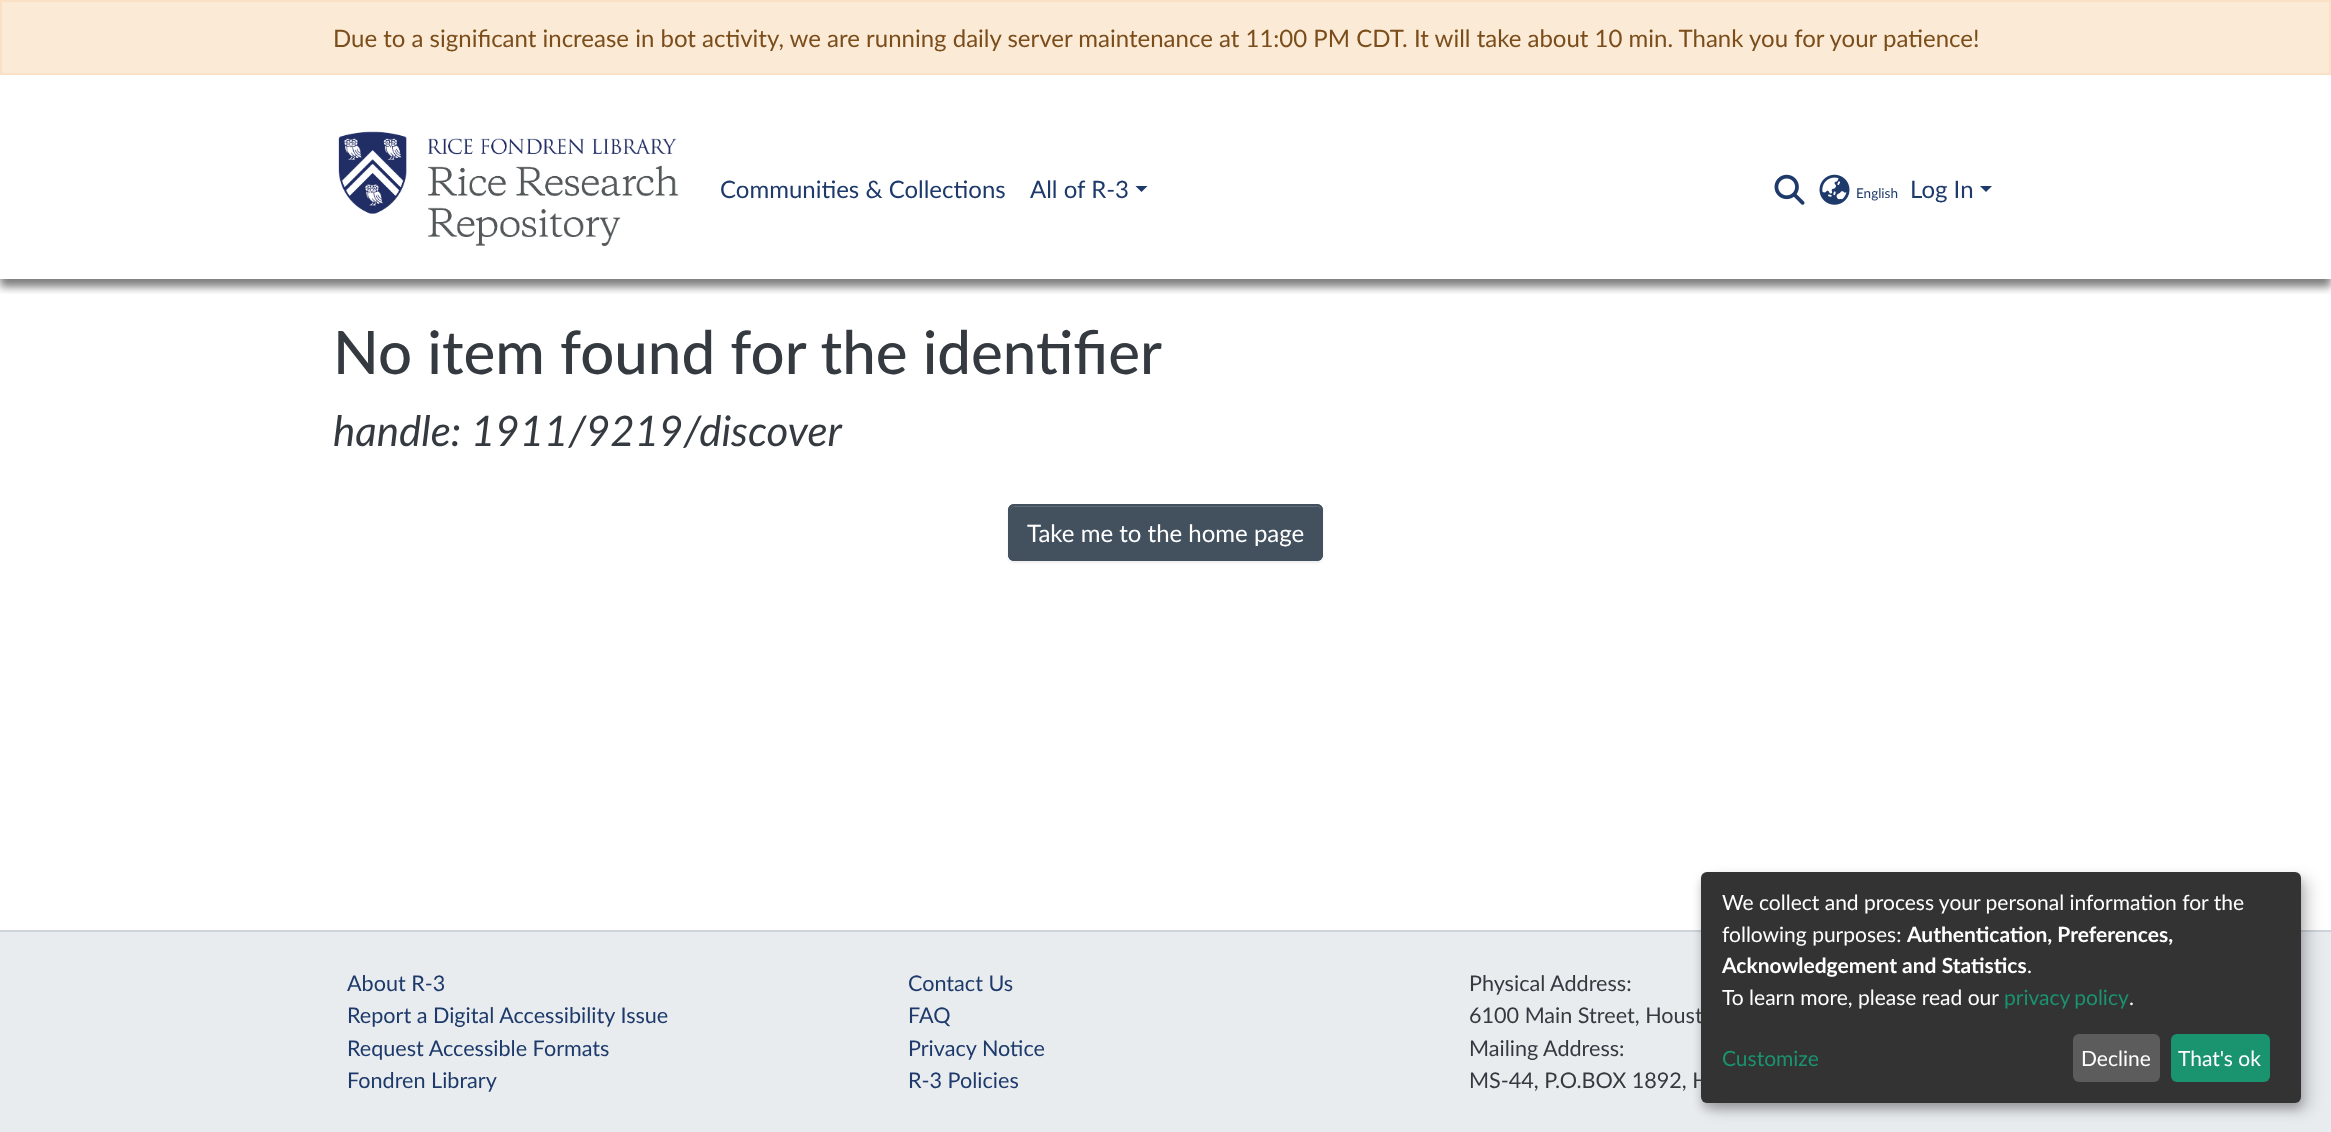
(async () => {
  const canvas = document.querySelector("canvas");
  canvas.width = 2331;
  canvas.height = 1132;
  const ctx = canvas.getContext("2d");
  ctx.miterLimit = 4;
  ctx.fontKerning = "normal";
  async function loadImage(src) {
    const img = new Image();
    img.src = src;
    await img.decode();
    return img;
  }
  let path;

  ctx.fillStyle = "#ffffff";
  ctx.fillRect(0, 0, 2331, 1132);
  ctx.fillStyle = "#fbead6";
  ctx.beginPath();
  ctx.rect(1, 1, 2329, 73);
  ctx.fill();
  ctx.strokeStyle = "#fae1c6";
  ctx.lineWidth = 2;
  ctx.stroke();
  ctx.save();
  ctx.beginPath();
  ctx.rect(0, 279, 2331, 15);
  ctx.clip();
  ctx.fillStyle = "rgba(0, 0, 0, 0.5)";
  ctx.filter = "blur(4px)";
  ctx.beginPath();
  ctx.rect(0, 107, 2331, 180);
  ctx.fill();
  ctx.filter = "none";
  ctx.restore();
  ctx.drawImage(await loadImage("img/1.png"), 338, 131, 341, 116);
  ctx.fillStyle = "#1d3a6b";
  path = new Path2D("M1135.5 186H1147.5L1141.5 192Z");
  ctx.fill(path);
  ctx.drawImage(await loadImage("img/2.png"), 1774, 174, 31, 31);
  ctx.drawImage(await loadImage("img/3.png"), 1819, 174, 31, 31);
  path = new Path2D("M1980 186H1992L1986 192Z");
  ctx.fill(path);
  ctx.fillStyle = "rgba(0, 0, 0, 0.07)";
  ctx.filter = "blur(1px)";
  ctx.beginPath();
  ctx.roundRect(1008, 506, 315, 57, 6);
  ctx.fill();
  ctx.filter = "none";
  ctx.fillStyle = "#43515f";
  ctx.beginPath();
  ctx.roundRect(1008, 504, 315, 57, 6);
  ctx.fill();
  ctx.fillStyle = "#5f6b77";
  path = new Path2D("M1014 507H1317C1319 507 1322 509 1322 512C1322 509 1320 506 1317 506H1015C1012 506 1010 509 1010 512C1010 509 1012 507 1014 507Z");
  ctx.fill(path);
  ctx.beginPath();
  ctx.roundRect(1009, 505, 313, 55, 5);
  ctx.strokeStyle = "#43515f";
  ctx.stroke();
  ctx.fillStyle = "#ced4da";
  ctx.fillRect(0, 930, 2331, 2);
  ctx.fillStyle = "#e9ecef";
  ctx.fillRect(0, 932, 2331, 200);
  ctx.fillStyle = "rgba(0, 0, 0, 0.19)";
  ctx.filter = "blur(7.5px)";
  ctx.beginPath();
  ctx.roundRect(1709, 879, 600, 231, 6);
  ctx.fill();
  ctx.filter = "none";
  ctx.fillStyle = "rgba(0, 0, 0, 0.2)";
  ctx.filter = "blur(4.5px)";
  ctx.beginPath();
  ctx.roundRect(1701, 878, 600, 231, 6);
  ctx.fill();
  ctx.filter = "none";
  ctx.font = "24px Lato";
  ctx.fillStyle = "#7b4d1b";
  ctx.fillText("Due to a significant increase in bot activity, we are running daily server maintenance at 11:00 PM CDT. It will take about 10 min. Thank you for your patience!", 333, 47);
  ctx.fillStyle = "#1d3a6b";
  ctx.fillText("Communities & Collections", 720, 198);
  ctx.fillText("All of R-3", 1030, 198);
  ctx.font = "13.5px Lato";
  ctx.fillText("English", 1856, 198);
  ctx.font = "24px Lato";
  ctx.fillText("Log In", 1910, 198);
  ctx.font = "500 60px Lato";
  ctx.fillStyle = "#343a40";
  ctx.fillText("No item found for the identifier", 333, 374);
  ctx.font = "italic 42px Lato";
  ctx.fillText("handle: 1911/9219/discover", 333, 446);
  ctx.font = "24px Lato";
  ctx.fillStyle = "#ffffff";
  ctx.fillText("Take me to the home page", 1027, 542);
  ctx.font = "21.6px Lato";
  ctx.fillStyle = "#1d3a6b";
  for (const [text, x, y] of [
    ["About R-3", 347, 991],
    ["Report a Digital Accessibility Issue", 347, 1023],
    ["Request Accessible Formats", 347, 1056],
    ["Fondren Library", 347, 1088],
    ["Contact Us", 908, 991],
    ["FAQ", 908, 1023],
    ["Privacy Notice", 908, 1056],
    ["R-3 Policies", 908, 1088],
  ]) {
    ctx.fillText(text, x, y);
  }
  ctx.fillStyle = "#343a40";
  for (const [text, x, y] of [
    ["Physical Address:", 1469, 991],
    ["6100 Main Street, Houst", 1469, 1023],
    ["Mailing Address:", 1469, 1056],
    ["MS-44, P.O.BOX 1892, H", 1469, 1088],
  ]) {
    ctx.fillText(text, x, y);
  }
  ctx.fillStyle = "#333333";
  ctx.beginPath();
  ctx.roundRect(1701, 872, 600, 231, 6);
  ctx.fill();
  ctx.font = "21px Lato";
  ctx.fillStyle = "#ffffff";
  ctx.fillText("We collect and process your personal information for the", 1722, 910);
  ctx.fillText("following purposes:", 1722, 942);
  ctx.font = "bold 21px Lato";
  ctx.fillText("Authentication, Preferences,", 1907, 942);
  ctx.fillText("Acknowledgement and Statistics", 1722, 973);
  ctx.font = "21px Lato";
  ctx.fillText(".", 2027, 973);
  ctx.fillText("To learn more, please read our", 1722, 1005);
  ctx.wordSpacing = "-1px";
  ctx.fillStyle = "#1a936f";
  ctx.fillText("privacy policy", 2004, 1005);
  ctx.wordSpacing = "0px";
  ctx.fillStyle = "#ffffff";
  ctx.fillText(".", 2129, 1005);
  ctx.fillStyle = "#1a936f";
  ctx.fillText("Customize", 1722, 1066);
  ctx.fillStyle = "#5c5c5c";
  ctx.beginPath();
  ctx.roundRect(2073, 1034, 87, 48, 6);
  ctx.fill();
  ctx.fillStyle = "#ffffff";
  ctx.fillText("Decline", 2081, 1066);
  ctx.fillStyle = "#1a936f";
  ctx.beginPath();
  ctx.roundRect(2171, 1034, 99, 48, 6);
  ctx.fill();
  ctx.fillStyle = "#ffffff";
  ctx.fillText("That's ok", 2178, 1066);
})();
